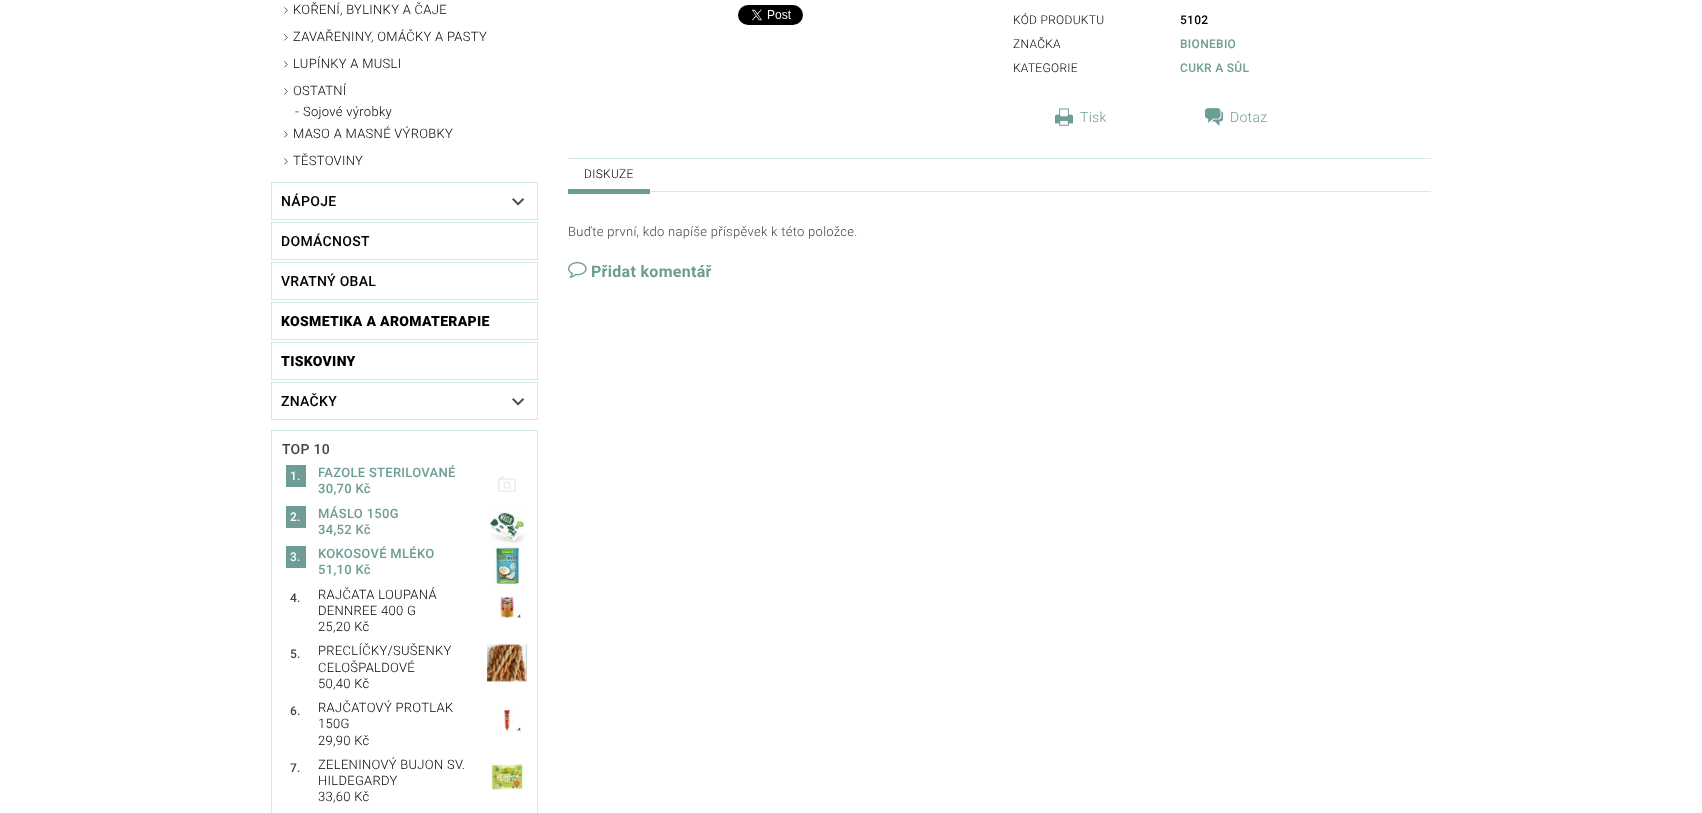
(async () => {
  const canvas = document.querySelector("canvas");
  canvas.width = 1702;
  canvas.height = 813;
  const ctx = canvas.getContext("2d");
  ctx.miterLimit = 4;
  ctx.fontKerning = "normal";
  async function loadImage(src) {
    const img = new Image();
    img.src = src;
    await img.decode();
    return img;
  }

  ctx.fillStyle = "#ffffff";
  ctx.fillRect(0, 0, 1702, 813);
  ctx.drawImage(await loadImage("img/1.png"), 284, 7, 4, 7);
  ctx.drawImage(await loadImage("img/1.png"), 284, 34, 4, 7);
  ctx.drawImage(await loadImage("img/1.png"), 284, 61, 4, 7);
  ctx.drawImage(await loadImage("img/1.png"), 284, 88, 4, 7);
  ctx.drawImage(await loadImage("img/1.png"), 284, 131, 4, 7);
  ctx.drawImage(await loadImage("img/1.png"), 284, 158, 4, 7);
  ctx.strokeStyle = "#d2eae7";
  ctx.strokeRect(271.5, 182.5, 266, 37);
  ctx.drawImage(await loadImage("img/2.png"), 512, 198, 13, 8);
  ctx.strokeRect(271.5, 222.5, 266, 37);
  ctx.strokeRect(271.5, 262.5, 266, 37);
  ctx.strokeRect(271.5, 302.5, 266, 37);
  ctx.strokeRect(271.5, 342.5, 266, 37);
  ctx.strokeRect(271.5, 382.5, 266, 37);
  ctx.drawImage(await loadImage("img/2.png"), 512, 398, 13, 8);
  ctx.strokeRect(271.5, 430.5, 266, 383);
  ctx.fillStyle = "#6e9d96";
  ctx.fillRect(286, 465, 20, 22);
  ctx.drawImage(await loadImage("img/3.png"), 498, 477, 18, 15);
  ctx.fillRect(286, 506, 20, 22);
  ctx.drawImage(await loadImage("img/4.png"), 489, 510, 37, 33);
  ctx.fillRect(286, 546, 20, 22);
  ctx.drawImage(await loadImage("img/5.png"), 494, 546, 27, 40);
  ctx.drawImage(await loadImage("img/6.png"), 500, 596, 21, 23);
  ctx.drawImage(await loadImage("img/7.png"), 487, 643, 40, 40);
  ctx.drawImage(await loadImage("img/8.png"), 503, 707, 19, 25);
  ctx.drawImage(await loadImage("img/9.png"), 490, 763, 35, 28);
  ctx.drawImage(await loadImage("img/10.png"), 738, 5, 65, 20);
  ctx.drawImage(await loadImage("img/11.png"), 1055, 108, 18, 18);
  ctx.drawImage(await loadImage("img/12.png"), 1205, 108, 19, 18);
  for (const [x, y, w, h, color] of [
    [568, 158, 863, 1, "#d2eae7"],
    [650, 191, 781, 1, "#d2eae7"],
    [568, 189, 82, 5, "#6e9d96"],
  ]) {
    ctx.fillStyle = color;
    ctx.fillRect(x, y, w, h);
  }
  ctx.drawImage(await loadImage("img/13.png"), 568, 262, 19, 16);
  ctx.letterSpacing = "0.3px";
  ctx.font = "300 13px Roboto";
  ctx.fillStyle = "#000000";
  for (const [text, x, y] of [
    ["KOŘENÍ, BYLINKY A ČAJE", 293, 14],
    ["ZAVAŘENINY, OMÁČKY A PASTY", 293, 41],
    ["LUPÍNKY A MUSLI", 293, 68],
    ["OSTATNÍ", 293, 95],
    ["-", 295, 116],
    ["Sojové výrobky", 303, 116],
    ["MASO A MASNÉ VÝROBKY", 293, 138],
    ["TĚSTOVINY", 293, 165],
  ]) {
    ctx.fillText(text, x, y);
  }
  ctx.font = "500 14px Roboto";
  for (const [text, x, y] of [
    ["NÁPOJE", 281, 206],
    ["DOMÁCNOST", 281, 246],
    ["VRATNÝ OBAL", 281, 286],
  ]) {
    ctx.fillText(text, x, y);
  }
  ctx.font = "900 14px Roboto";
  ctx.fillText("KOSMETIKA A AROMATERAPIE", 281, 326);
  ctx.fillText("TISKOVINY", 281, 366);
  ctx.font = "500 14px Roboto";
  ctx.fillText("ZNAČKY", 281, 406);
  ctx.fillStyle = "#444444";
  ctx.fillText("TOP 10", 282, 454);
  ctx.font = "500 12px Roboto";
  ctx.fillStyle = "#ffffff";
  ctx.fillText("1.", 290, 480);
  ctx.font = "500 13px Roboto";
  ctx.fillStyle = "#6e9d96";
  ctx.fillText("FAZOLE STERILOVANÉ", 318, 477);
  ctx.fillText("30,70 Kč", 318, 493);
  ctx.font = "500 12px Roboto";
  ctx.fillStyle = "#ffffff";
  ctx.fillText("2.", 290, 521);
  ctx.font = "500 13px Roboto";
  ctx.fillStyle = "#6e9d96";
  ctx.fillText("MÁSLO 150G", 318, 518);
  ctx.fillText("34,52 Kč", 318, 534);
  ctx.font = "500 12px Roboto";
  ctx.fillStyle = "#ffffff";
  ctx.fillText("3.", 290, 561);
  ctx.font = "500 13px Roboto";
  ctx.fillStyle = "#6e9d96";
  ctx.fillText("KOKOSOVÉ MLÉKO", 318, 558);
  ctx.fillText("51,10 Kč", 318, 574);
  ctx.font = "500 12px Roboto";
  ctx.fillStyle = "#444444";
  ctx.fillText("4.", 290, 602);
  ctx.font = "300 13px Roboto";
  ctx.fillStyle = "#000000";
  for (const [text, x, y] of [
    ["RAJČATA LOUPANÁ", 318, 599],
    ["DENNREE 400 G", 318, 615],
    ["25,20 Kč", 318, 631],
  ]) {
    ctx.fillText(text, x, y);
  }
  ctx.font = "500 12px Roboto";
  ctx.fillStyle = "#444444";
  ctx.fillText("5.", 290, 658);
  ctx.font = "300 13px Roboto";
  ctx.fillStyle = "#000000";
  for (const [text, x, y] of [
    ["PRECLÍČKY/SUŠENKY", 318, 655],
    ["CELOŠPALDOVÉ", 318, 672],
    ["50,40 Kč", 318, 688],
  ]) {
    ctx.fillText(text, x, y);
  }
  ctx.font = "500 12px Roboto";
  ctx.fillStyle = "#444444";
  ctx.fillText("6.", 290, 715);
  ctx.font = "300 13px Roboto";
  ctx.fillStyle = "#000000";
  for (const [text, x, y] of [
    ["RAJČATOVÝ PROTLAK", 318, 712],
    ["150G", 318, 728],
    ["29,90 Kč", 318, 745],
  ]) {
    ctx.fillText(text, x, y);
  }
  ctx.font = "500 12px Roboto";
  ctx.fillStyle = "#444444";
  ctx.fillText("7.", 290, 772);
  ctx.font = "300 13px Roboto";
  ctx.fillStyle = "#000000";
  for (const [text, x, y] of [
    ["ZELENINOVÝ BUJON SV.", 318, 769],
    ["HILDEGARDY", 318, 785],
    ["33,60 Kč", 318, 801],
  ]) {
    ctx.fillText(text, x, y);
  }
  ctx.font = "300 12px Roboto";
  ctx.fillText("KÓD PRODUKTU", 1013, 24);
  ctx.font = "500 12px Roboto";
  ctx.fillText("5102", 1180, 24);
  ctx.font = "300 12px Roboto";
  ctx.fillText("ZNAČKA", 1013, 48);
  ctx.font = "500 12px Roboto";
  ctx.fillStyle = "#6e9d96";
  ctx.fillText("BIONEBIO", 1180, 48);
  ctx.font = "300 12px Roboto";
  ctx.fillStyle = "#000000";
  ctx.fillText("KATEGORIE", 1013, 72);
  ctx.font = "500 12px Roboto";
  ctx.fillStyle = "#6e9d96";
  ctx.fillText("CUKR A SŮL", 1180, 72);
  ctx.font = "300 14px Roboto";
  ctx.fillText("Tisk", 1080, 122);
  ctx.fillText("Dotaz", 1230, 122);
  ctx.font = "300 12px Roboto";
  ctx.fillStyle = "#000000";
  ctx.fillText("DISKUZE", 584, 178);
  ctx.font = "300 13px Roboto";
  ctx.fillStyle = "#444444";
  ctx.fillText("Buďte první, kdo napíše příspěvek k této položce.", 568, 236);
  ctx.font = "bold 16px Roboto";
  ctx.fillStyle = "#6e9d96";
  ctx.fillText("Přidat komentář", 591, 277);
})();
